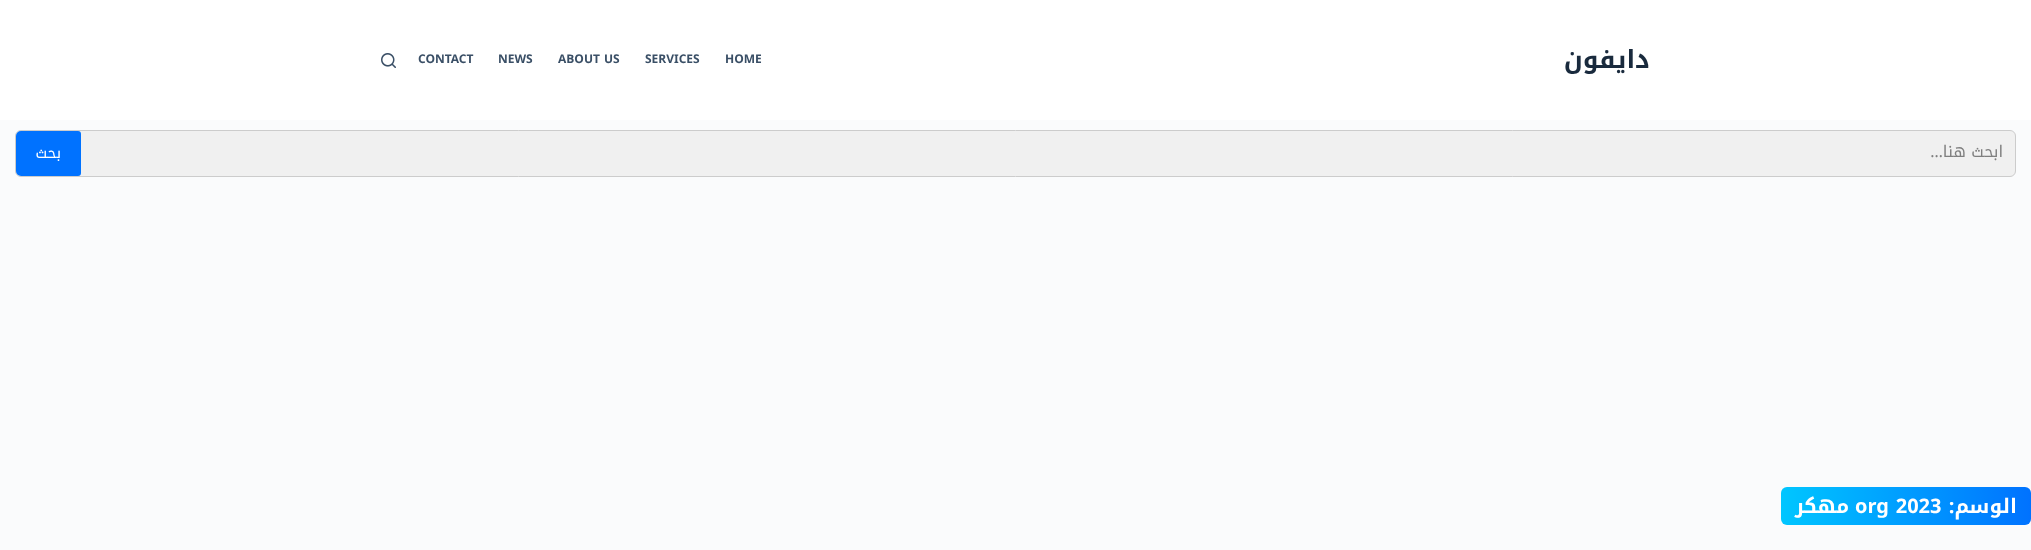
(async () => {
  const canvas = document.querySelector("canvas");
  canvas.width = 2031;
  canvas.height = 550;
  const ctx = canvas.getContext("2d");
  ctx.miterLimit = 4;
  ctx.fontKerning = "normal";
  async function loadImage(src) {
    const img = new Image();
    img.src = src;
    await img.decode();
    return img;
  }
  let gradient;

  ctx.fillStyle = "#fafbfc";
  ctx.fillRect(0, 0, 2031, 550);
  ctx.fillStyle = "#ffffff";
  ctx.fillRect(0, 0, 2031, 120);
  ctx.drawImage(await loadImage("img/1.png"), 381, 53, 15, 15);
  ctx.fillStyle = "#f0f0f0";
  ctx.beginPath();
  ctx.roundRect(15.5, 130.5, 2000, 46, 5.5);
  ctx.fill();
  ctx.strokeStyle = "#cccccc";
  ctx.stroke();
  ctx.fillStyle = "#0072ff";
  ctx.beginPath();
  ctx.roundRect(16, 131, 65, 45, [5, 3, 3, 5]);
  ctx.fill();
  gradient = ctx.createLinearGradient(1781, 506, 2031, 506);
  gradient.addColorStop(0, "#00c6ff");
  gradient.addColorStop(1, "#0072ff");
  ctx.fillStyle = gradient;
  ctx.beginPath();
  ctx.roundRect(1781, 487, 250, 38, 6);
  ctx.fill();
  ctx.font = "bold 12px Noto Kufi Arabic";
  ctx.fillStyle = "#3a4f66";
  for (const [text, x, y] of [
    ["CONTACT", 418, 63],
    ["NEWS", 498, 63],
    ["ABOUT US", 558, 63],
    ["SERVICES", 645, 63],
    ["HOME", 725, 63],
  ]) {
    ctx.fillText(text, x, y);
  }
  ctx.direction = "rtl";
  ctx.font = "bold 25px Noto Kufi Arabic";
  ctx.fillStyle = "#192a3d";
  ctx.fillText("دايفون", 1650, 68);
  ctx.font = "15px Noto Kufi Arabic";
  ctx.fillStyle = "#ffffff";
  ctx.fillText("بحث", 61, 158);
  ctx.font = "16px Noto Kufi Arabic";
  ctx.fillStyle = "#7f7f7f";
  ctx.fillText("ابحث هنا…", 2003, 157);
  ctx.font = "bold 20px Noto Kufi Arabic";
  ctx.fillStyle = "#ffffff";
  ctx.fillText("مهكر", 1849, 513);
  ctx.direction = "ltr";
  ctx.fillText("org 2023", 1855, 513);
  ctx.direction = "rtl";
  ctx.fillText("الوسم:", 2017, 513);
})();
